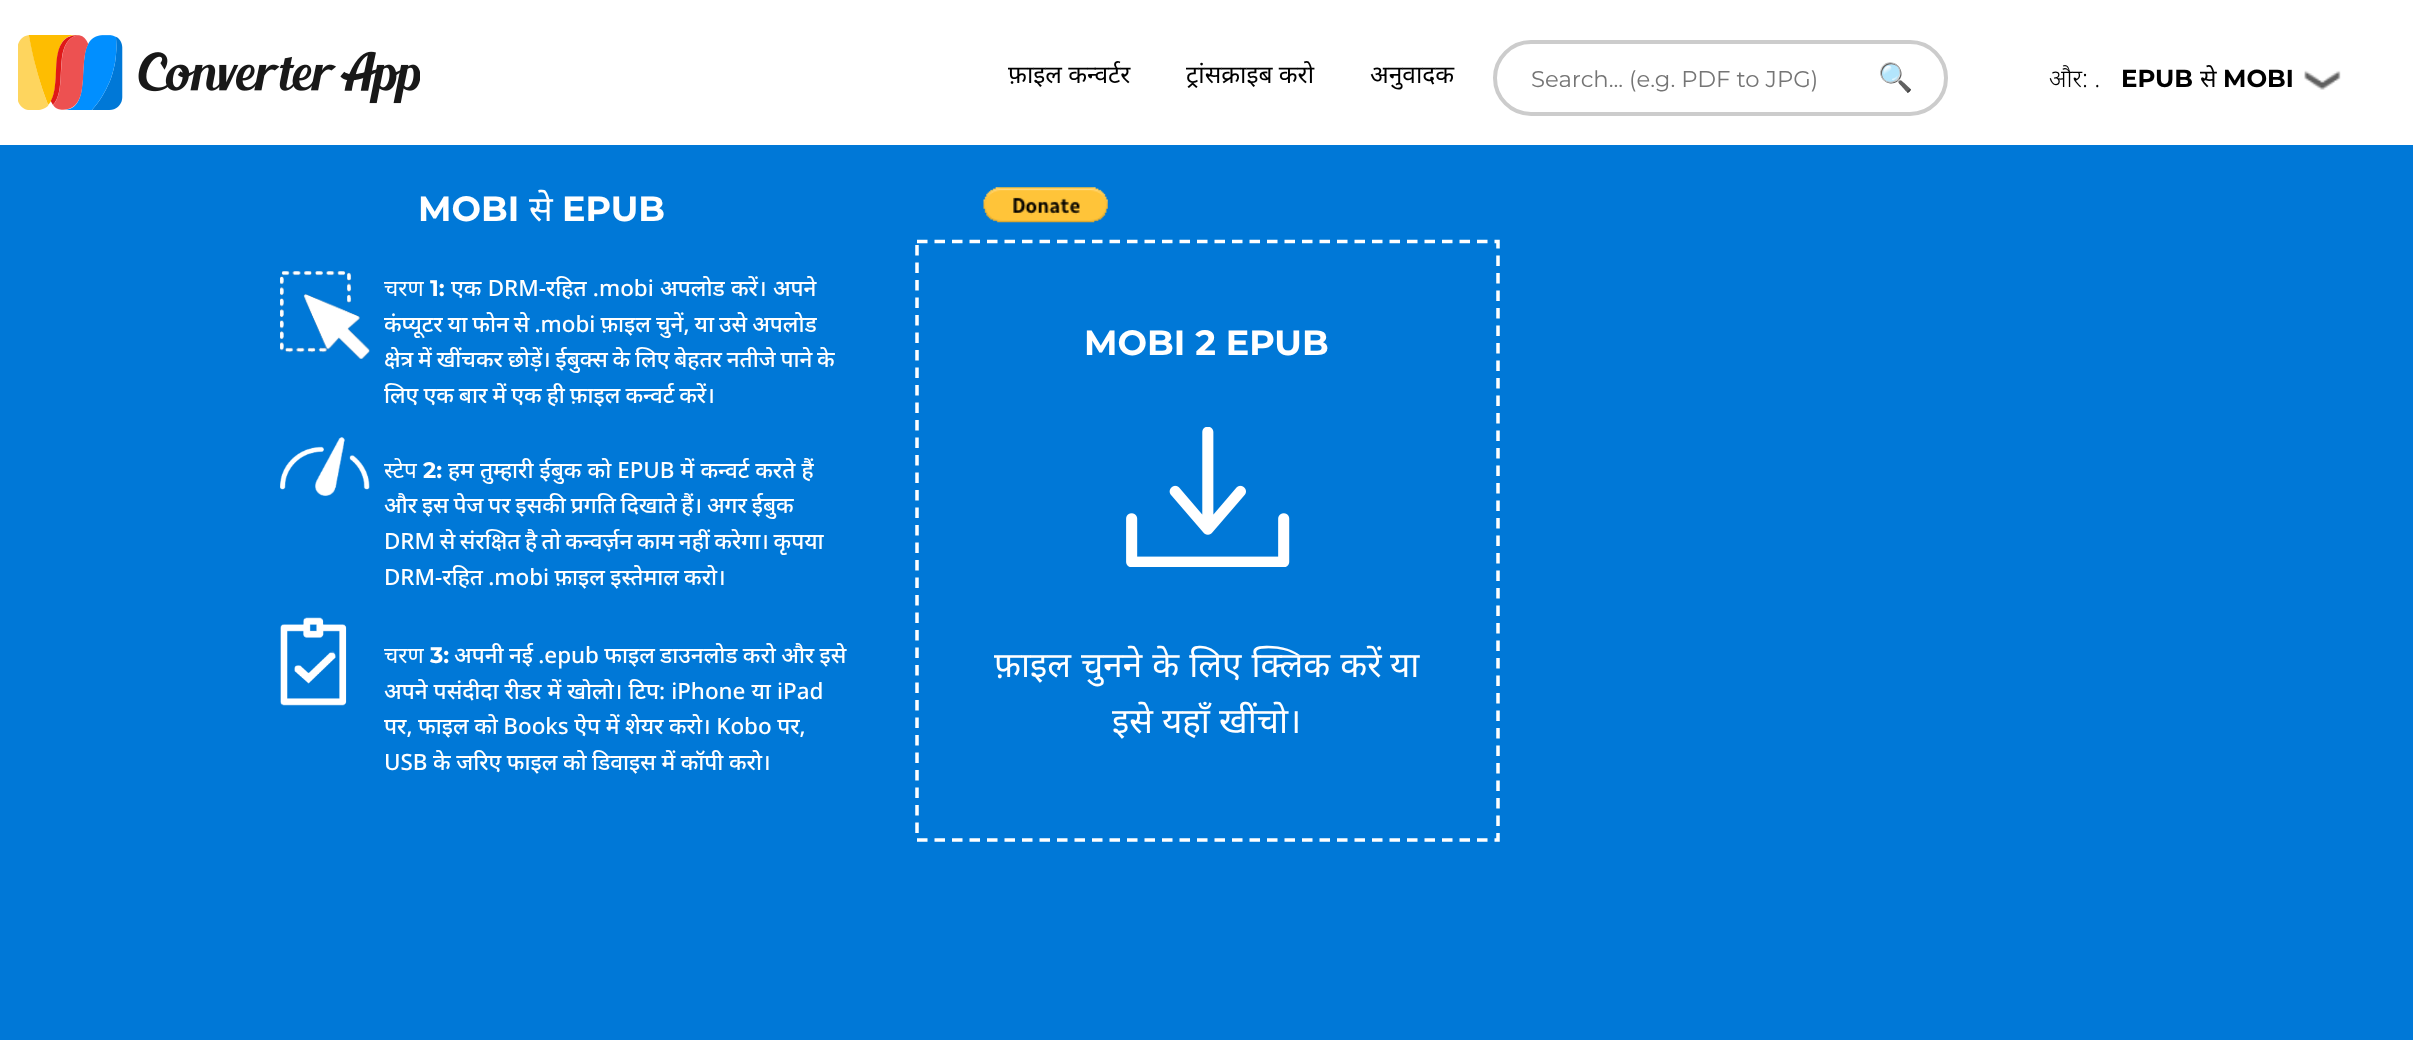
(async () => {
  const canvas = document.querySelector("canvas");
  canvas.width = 2413;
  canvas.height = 1040;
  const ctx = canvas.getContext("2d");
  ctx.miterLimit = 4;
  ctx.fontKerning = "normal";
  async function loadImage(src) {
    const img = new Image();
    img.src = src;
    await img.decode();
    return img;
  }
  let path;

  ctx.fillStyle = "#ffffff";
  ctx.fillRect(0, 0, 2413, 1040);
  ctx.drawImage(await loadImage("img/1.png"), 18, 35, 402, 75);
  ctx.beginPath();
  ctx.roundRect(1495, 42, 451, 72, 36);
  ctx.strokeStyle = "#cccccc";
  ctx.lineWidth = 4;
  ctx.stroke();
  ctx.drawImage(await loadImage("img/2.png"), 2304, 70, 37, 20);
  ctx.fillStyle = "#0078d7";
  ctx.fillRect(0, 145, 2413, 895);
  ctx.drawImage(await loadImage("img/3.png"), 280, 271, 90, 88);
  ctx.drawImage(await loadImage("img/4.png"), 280, 437, 90, 59);
  ctx.drawImage(await loadImage("img/5.png"), 280, 617, 67, 89);
  ctx.drawImage(await loadImage("img/6.png"), 983, 187, 125, 36);
  path = new Path2D("M917 241.5H1498V840H917Z");
  ctx.strokeStyle = "#ffffff";
  ctx.lineWidth = 3.5;
  ctx.setLineDash([10.5, 7]);
  ctx.stroke(path);
  ctx.drawImage(await loadImage("img/7.png"), 1126, 427, 164, 140);
  ctx.font = "24.5px Noto Sans";
  ctx.fillStyle = "#000000";
  for (const [text, x, y] of [
    ["फ़ाइल कन्वर्टर", 1008, 83],
    ["ट्रांसक्राइब करो", 1186, 83],
    ["अनुवादक", 1370, 83],
  ]) {
    ctx.fillText(text, x, y);
  }
  ctx.font = "22.75px Montserrat";
  ctx.fillStyle = "#757575";
  ctx.fillText("Search... (e.g. PDF to JPG)", 1531, 87);
  ctx.font = "28px Noto Color Emoji";
  ctx.fillStyle = "#3f51b5";
  ctx.fillText("🔍", 1878, 87);
  ctx.font = "300 24.5px Noto Sans";
  ctx.fillStyle = "#000000";
  ctx.fillText("और: .", 2049, 87);
  ctx.font = "bold 24.5px Montserrat";
  ctx.fillText("EPUB", 2121, 87);
  ctx.font = "24.5px Noto Sans";
  ctx.fillText("से", 2200, 87);
  ctx.font = "bold 24.5px Montserrat";
  ctx.fillText("MOBI", 2223, 87);
  ctx.font = "bold 35px Montserrat";
  ctx.fillStyle = "#ffffff";
  ctx.fillText("MOBI", 418, 221);
  ctx.font = "35px Noto Sans";
  ctx.fillText("से", 529, 221);
  ctx.font = "bold 35px Montserrat";
  ctx.fillText("EPUB", 562, 221);
  ctx.font = "22.4px Noto Sans";
  ctx.fillText("चरण", 384, 296);
  ctx.font = "bold 22.4px Montserrat";
  ctx.fillText("1:", 430, 296);
  ctx.wordSpacing = "0.5px";
  ctx.font = "500 22.4px Noto Sans";
  ctx.fillText("एक DRM-रहित .mobi अपलोड करें। अपने", 451, 296);
  ctx.wordSpacing = "-0.75px";
  ctx.fillText("कंप्यूटर या फोन से .mobi फ़ाइल चुनें, या उसे अपलोड", 384, 332);
  ctx.wordSpacing = "-1px";
  ctx.fillText("क्षेत्र में खींचकर छोड़ें। ईबुक्स के लिए बेहतर नतीजे पाने के", 384, 367);
  ctx.wordSpacing = "-0.75px";
  ctx.fillText("लिए एक बार में एक ही फ़ाइल कन्वर्ट करें।", 384, 403);
  ctx.wordSpacing = "0px";
  ctx.font = "22.4px Noto Sans";
  ctx.fillText("स्टेप", 384, 478);
  ctx.font = "bold 22.4px Montserrat";
  ctx.fillText("2:", 423, 478);
  ctx.wordSpacing = "0.25px";
  ctx.font = "500 22.4px Noto Sans";
  ctx.fillText("हम तुम्हारी ईबुक को EPUB में कन्वर्ट करते हैं", 448, 478);
  ctx.wordSpacing = "-1px";
  ctx.fillText("और इस पेज पर इसकी प्रगति दिखाते हैं। अगर ईबुक", 384, 513);
  ctx.wordSpacing = "-1.25px";
  ctx.fillText("DRM से संरक्षित है तो कन्वर्ज़न काम नहीं करेगा। कृपया", 384, 549);
  ctx.wordSpacing = "-0.5px";
  ctx.fillText("DRM-रहित .mobi फ़ाइल इस्तेमाल करो।", 384, 585);
  ctx.wordSpacing = "0px";
  ctx.font = "22.4px Noto Sans";
  ctx.fillText("चरण", 384, 663);
  ctx.font = "bold 22.4px Montserrat";
  ctx.fillText("3:", 430, 663);
  ctx.wordSpacing = "-0.5px";
  ctx.font = "500 22.4px Noto Sans";
  ctx.fillText("अपनी नई .epub फाइल डाउनलोड करो और इसे", 454, 663);
  ctx.wordSpacing = "0.25px";
  ctx.fillText("अपने पसंदीदा रीडर में खोलो। टिप: iPhone या iPad", 384, 699);
  ctx.wordSpacing = "-0.25px";
  ctx.fillText("पर, फाइल को Books ऐप में शेयर करो। Kobo पर,", 384, 734);
  ctx.fillText("USB के जरिए फाइल को डिवाइस में कॉपी करो।", 384, 770);
  ctx.wordSpacing = "0px";
  ctx.font = "bold 35px Montserrat";
  ctx.fillText("MOBI 2 EPUB", 1084, 355);
  ctx.wordSpacing = "1px";
  ctx.font = "35px Noto Sans";
  ctx.fillText("फ़ाइल चुनने के लिए क्लिक करें", 994, 677);
  ctx.wordSpacing = "0px";
  ctx.fillText("या", 1390, 677);
  ctx.fillText("इसे यहाँ खींचो।", 1112, 733);
})();
